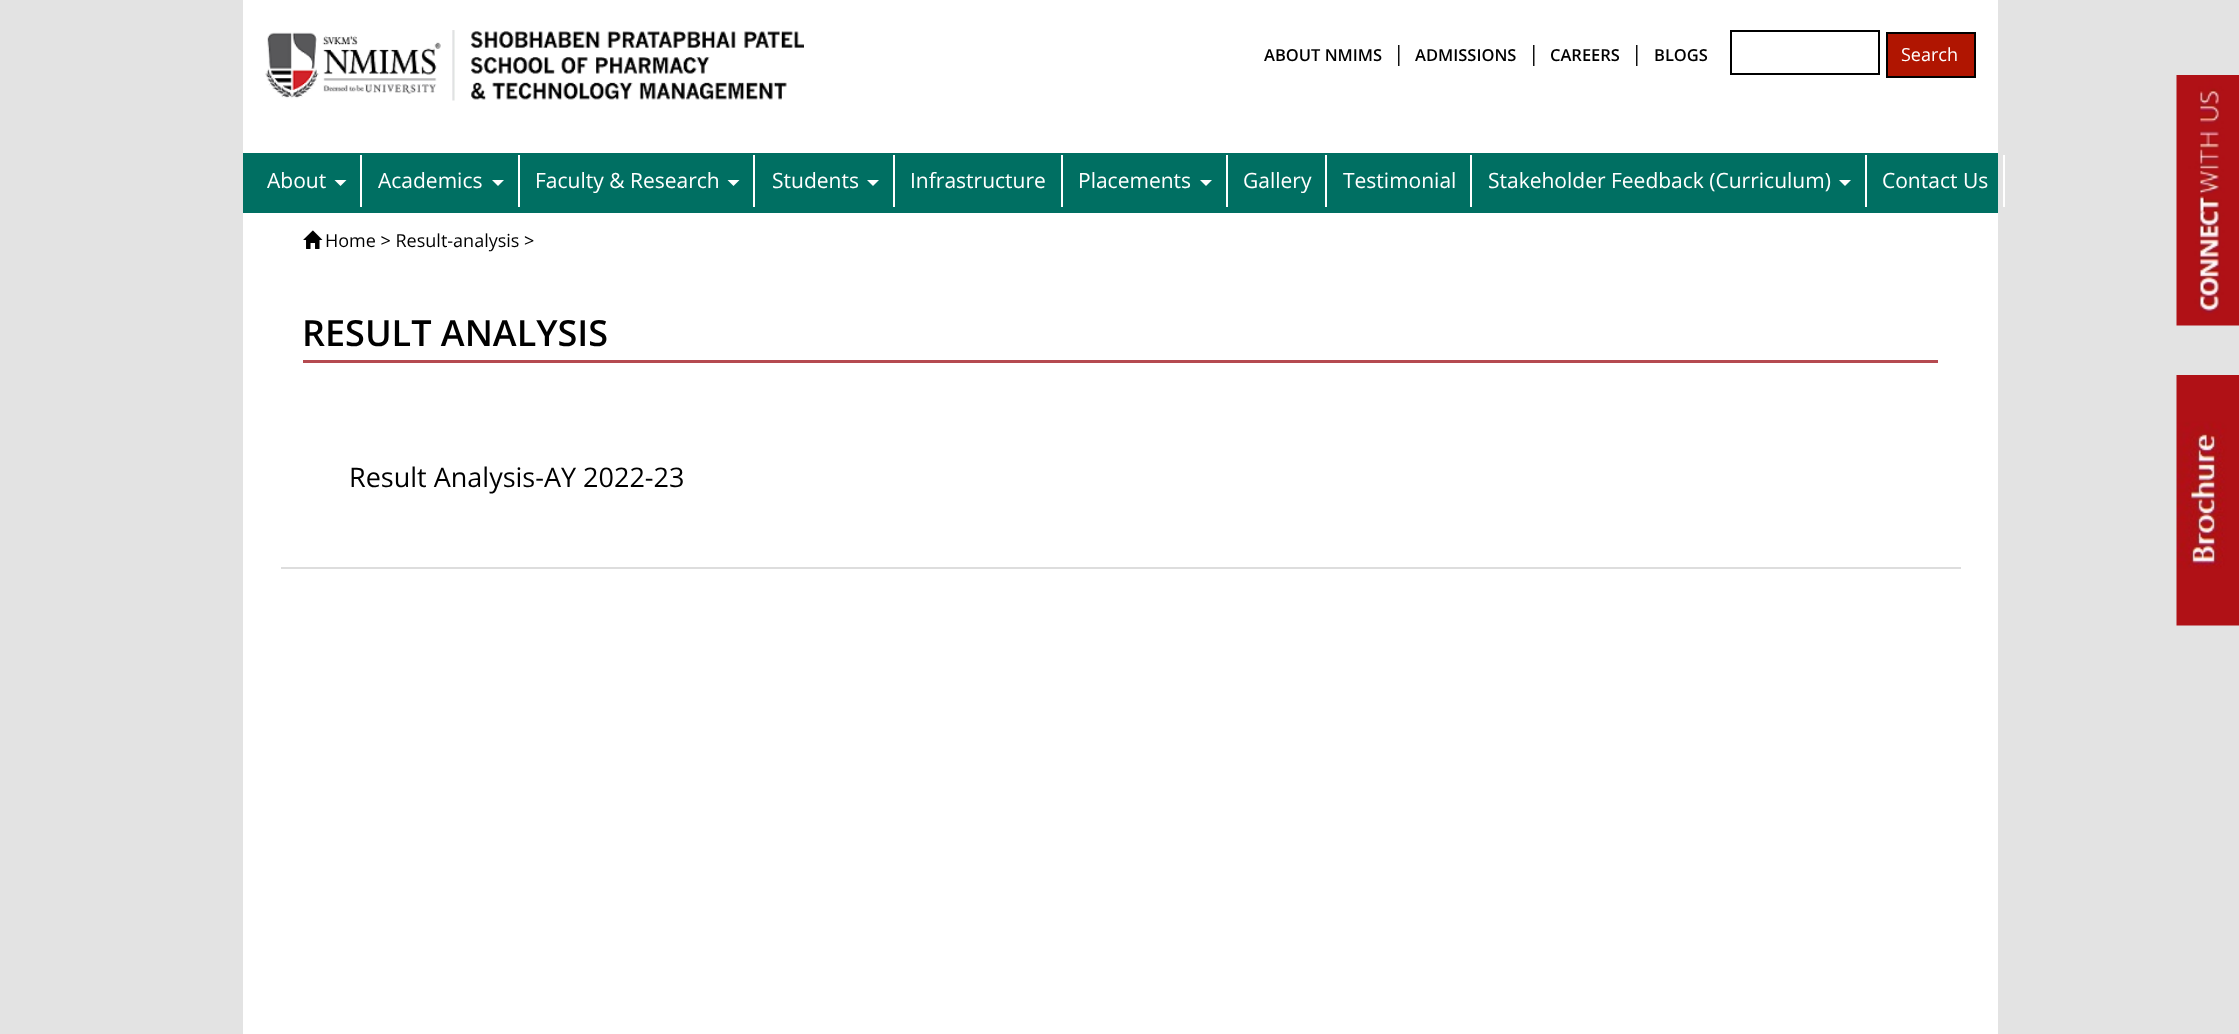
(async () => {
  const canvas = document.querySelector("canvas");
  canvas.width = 2239;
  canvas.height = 1034;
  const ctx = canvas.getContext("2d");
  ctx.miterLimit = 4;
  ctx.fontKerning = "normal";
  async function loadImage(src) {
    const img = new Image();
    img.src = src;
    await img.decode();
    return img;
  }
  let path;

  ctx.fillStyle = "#e3e3e3";
  ctx.fillRect(0, 0, 2239, 1034);
  ctx.fillStyle = "#ffffff";
  ctx.fillRect(243, 0, 1755, 153);
  ctx.drawImage(await loadImage("img/1.png"), 265, 30, 539, 71);
  ctx.strokeStyle = "#000000";
  ctx.lineWidth = 2;
  ctx.strokeRect(1731, 31, 148, 43);
  ctx.fillStyle = "#b01501";
  ctx.beginPath();
  ctx.rect(1887, 33, 88, 44);
  ctx.fill();
  ctx.stroke();
  ctx.fillStyle = "#006f62";
  ctx.fillRect(243, 153, 1755, 60);
  ctx.fillStyle = "#ffffff";
  ctx.fillRect(360, 155, 2, 52);
  path = new Path2D("M334.5 180H346.5L340.5 186Z");
  ctx.fill(path);
  ctx.fillRect(518, 155, 2, 52);
  path = new Path2D("M492 180H504L498 186Z");
  ctx.fill(path);
  ctx.fillRect(753, 155, 2, 52);
  path = new Path2D("M727.5 180H739.5L733.5 186Z");
  ctx.fill(path);
  ctx.fillRect(893, 155, 2, 52);
  path = new Path2D("M867 180H879L873 186Z");
  ctx.fill(path);
  ctx.fillRect(1061, 155, 2, 52);
  ctx.fillRect(1226, 155, 2, 52);
  path = new Path2D("M1200 180H1212L1206 186Z");
  ctx.fill(path);
  for (const [x, y, w, h, color] of [
    [1325, 155, 2, 52, "#ffffff"],
    [1470, 155, 2, 52, "#ffffff"],
    [1865, 155, 2, 52, "#ffffff"],
  ]) {
    ctx.fillStyle = color;
    ctx.fillRect(x, y, w, h);
  }
  path = new Path2D("M1839 180H1851L1845 186Z");
  ctx.fill(path);
  ctx.fillRect(2003, 155, 2, 52);
  ctx.drawImage(await loadImage("img/2.png"), 2176, 75, 63, 251);
  ctx.fillRect(243, 213, 1755, 821);
  ctx.drawImage(await loadImage("img/3.png"), 303, 230, 20, 19);
  ctx.fillStyle = "#b54a50";
  ctx.fillRect(303, 360, 1635, 3);
  ctx.fillStyle = "#dddddd";
  ctx.fillRect(281, 567, 1680, 2);
  ctx.drawImage(await loadImage("img/4.png"), 2176, 375, 63, 251);
  ctx.font = "600 16.5px Open Sans";
  ctx.fillStyle = "#000000";
  ctx.fillText("ABOUT NMIMS", 1264, 61);
  ctx.font = "21px Open Sans";
  ctx.fillText("|", 1393, 61);
  ctx.font = "600 16.5px Open Sans";
  ctx.fillText("ADMISSIONS", 1415, 61);
  ctx.font = "21px Open Sans";
  ctx.fillText("|", 1528, 61);
  ctx.font = "600 16.5px Open Sans";
  ctx.fillText("CAREERS", 1550, 61);
  ctx.font = "21px Open Sans";
  ctx.fillText("|", 1631, 61);
  ctx.font = "600 16.5px Open Sans";
  ctx.fillText("BLOGS", 1654, 61);
  ctx.font = "18px Open Sans";
  ctx.fillStyle = "#ffffff";
  ctx.fillText("Search", 1901, 61);
  ctx.font = "21px Open Sans";
  for (const [text, x, y] of [
    ["About", 267, 188],
    ["Academics", 378, 188],
    ["Faculty & Research", 535, 188],
    ["Students", 772, 188],
    ["Infrastructure", 910, 188],
    ["Placements", 1078, 188],
    ["Gallery", 1243, 188],
    ["Testimonial", 1343, 188],
    ["Stakeholder Feedback (Curriculum)", 1488, 188],
    ["Contact Us", 1882, 188],
  ]) {
    ctx.fillText(text, x, y);
  }
  ctx.font = "18px Open Sans";
  ctx.fillStyle = "#000000";
  ctx.fillText("Home > Result-analysis >", 325, 247);
  ctx.font = "600 36px Open Sans";
  ctx.fillText("RESULT ANALYSIS", 302, 346);
  ctx.font = "27px Open Sans";
  ctx.fillText("Result Analysis-AY 2022-23", 349, 487);
})();
